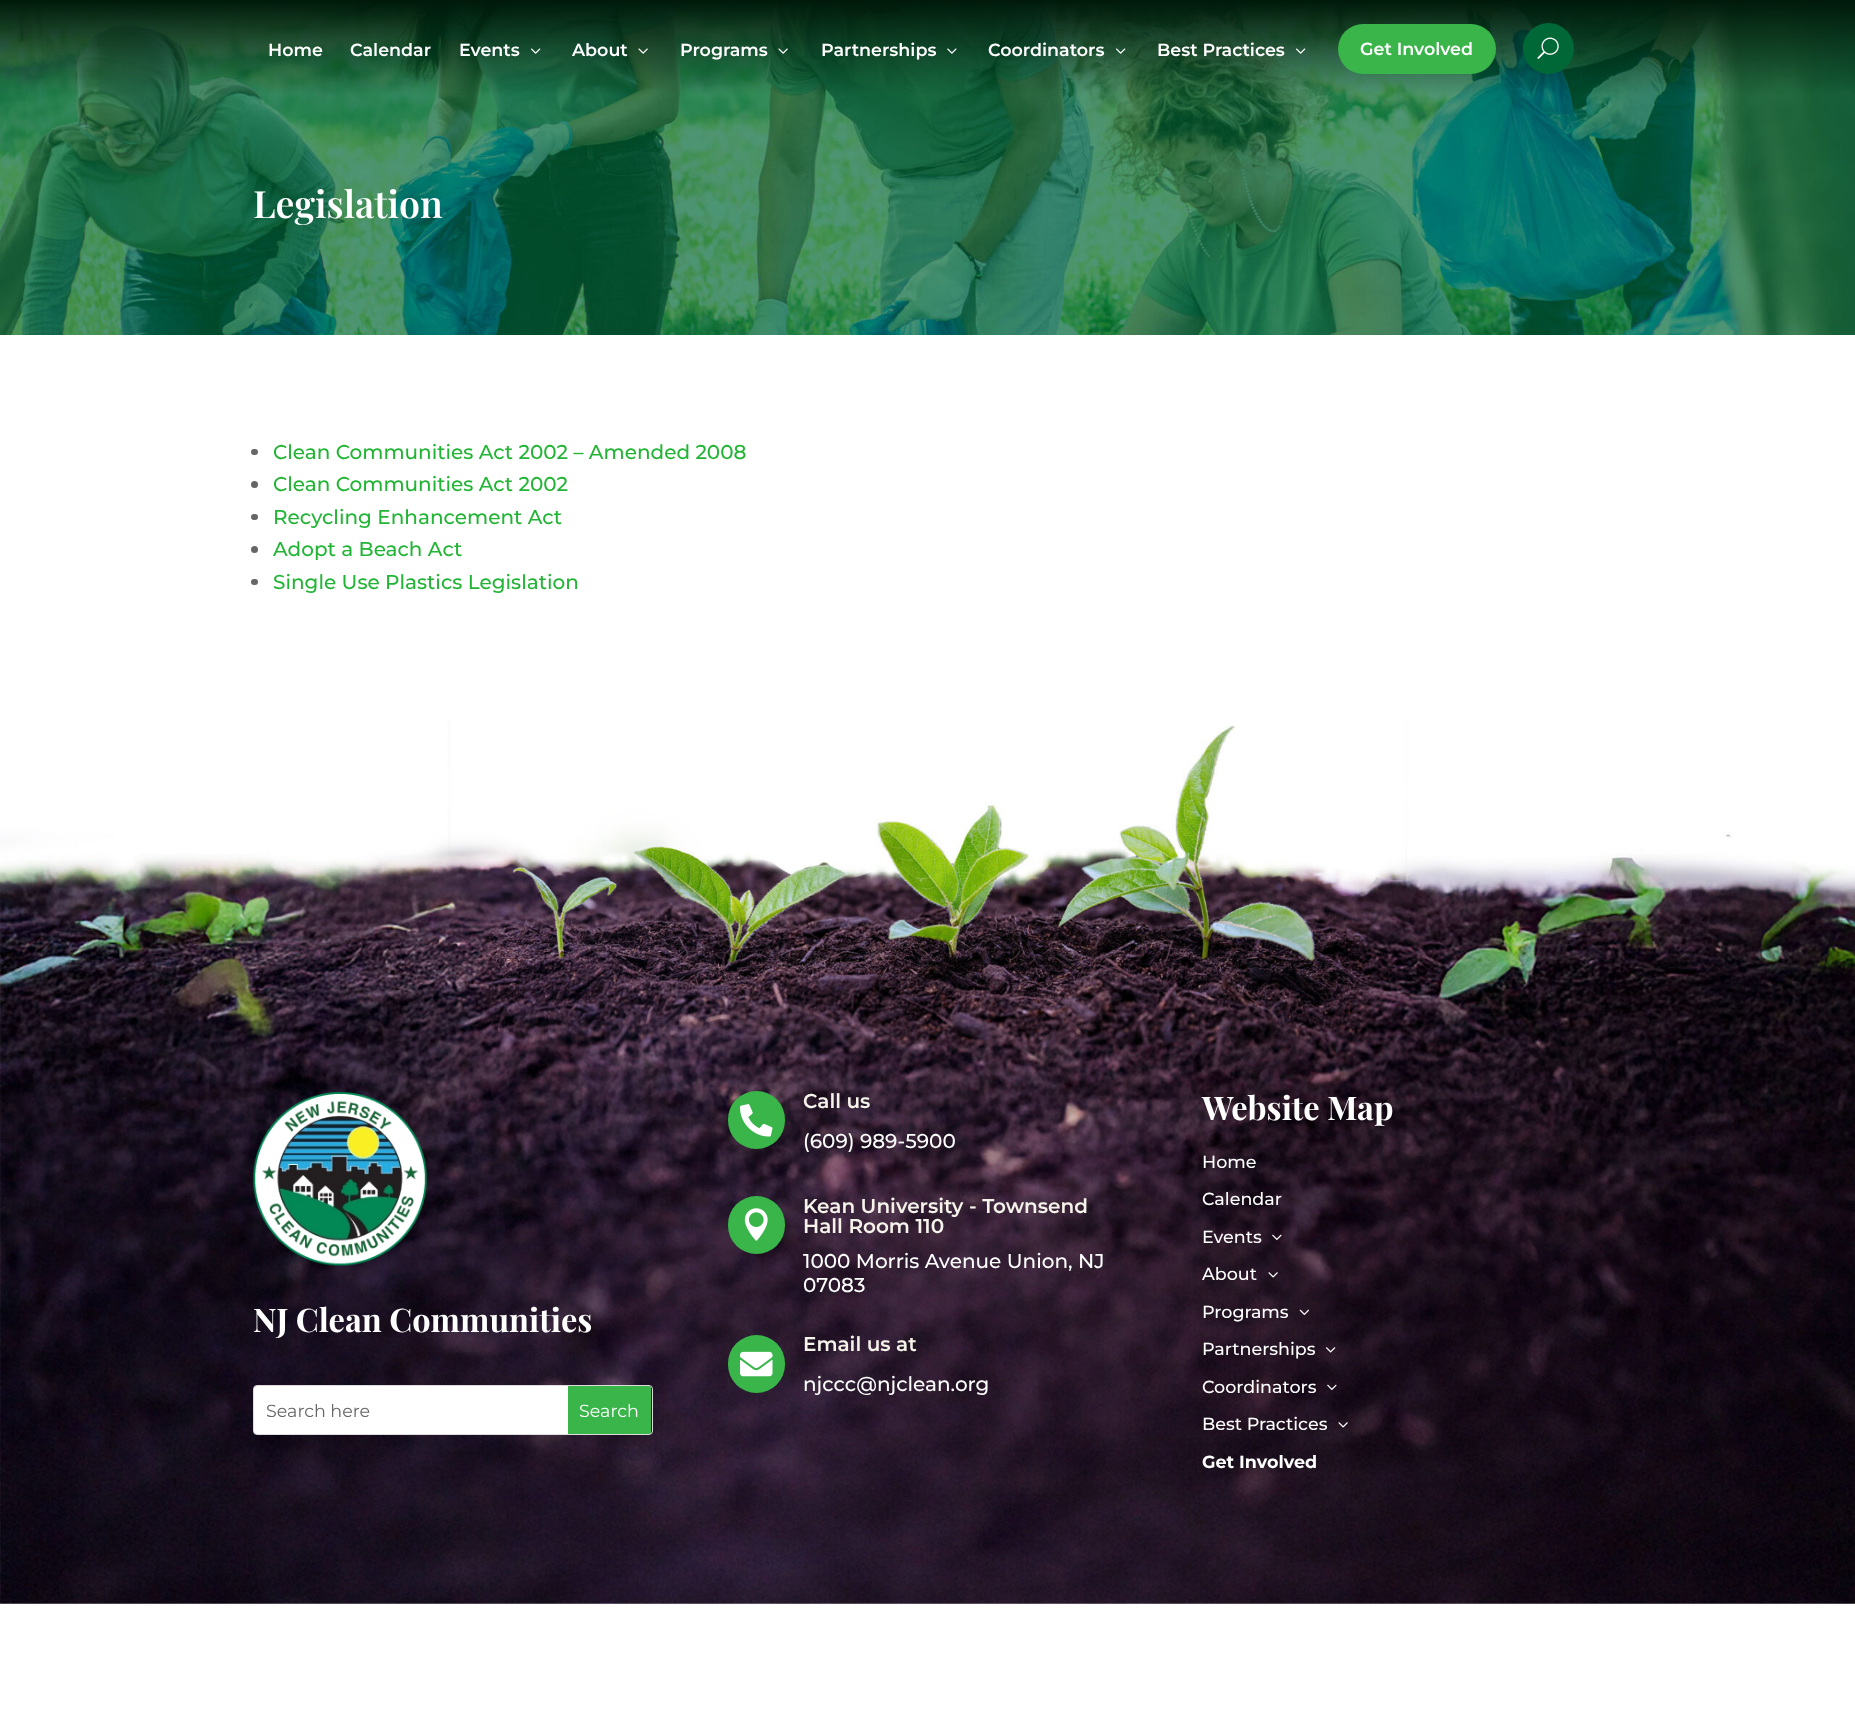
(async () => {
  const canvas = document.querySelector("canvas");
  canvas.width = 1855;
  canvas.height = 1712;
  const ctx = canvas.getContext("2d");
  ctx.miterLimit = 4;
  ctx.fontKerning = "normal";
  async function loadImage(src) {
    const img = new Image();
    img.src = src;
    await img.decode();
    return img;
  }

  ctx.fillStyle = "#ffffff";
  ctx.fillRect(0, 0, 1855, 1712);
  ctx.drawImage(await loadImage("img/8.png"), 0, 0, 1855, 335);
  ctx.drawImage(await loadImage("img/1.png"), 531, 48, 10, 6);
  ctx.drawImage(await loadImage("img/2.png"), 638, 48, 10, 6);
  ctx.drawImage(await loadImage("img/3.png"), 778, 48, 10, 6);
  ctx.drawImage(await loadImage("img/4.png"), 947, 48, 10, 6);
  ctx.drawImage(await loadImage("img/5.png"), 1116, 48, 10, 6);
  ctx.drawImage(await loadImage("img/6.png"), 1296, 48, 10, 6);
  ctx.fillStyle = "#39b54a";
  ctx.beginPath();
  ctx.roundRect(1338, 24, 158, 50, 25);
  ctx.fill();
  ctx.fillStyle = "#006837";
  ctx.beginPath();
  ctx.arc(1548.5, 48.5, 25.5, 0, Math.PI * 2);
  ctx.fill();
  ctx.drawImage(await loadImage("img/7.png"), 1537, 37, 22, 22);
  ctx.fillStyle = "#666666";
  ctx.beginPath();
  ctx.roundRect(251, 449, 7, 6, 3);
  ctx.fill();
  ctx.beginPath();
  ctx.arc(254.5, 484.5, 3.5, 0, Math.PI * 2);
  ctx.fill();
  ctx.beginPath();
  ctx.roundRect(251, 514, 7, 6, 3);
  ctx.fill();
  ctx.beginPath();
  ctx.arc(254.5, 549.5, 3.5, 0, Math.PI * 2);
  ctx.fill();
  ctx.beginPath();
  ctx.roundRect(251, 579, 7, 6, 3);
  ctx.fill();
  ctx.drawImage(await loadImage("img/9.png"), 0, 720, 1855, 884);
  ctx.drawImage(await loadImage("img/10.png"), 253, 1092, 174, 174);
  ctx.beginPath();
  ctx.roundRect(253.5, 1385.5, 399, 49, 3.5);
  ctx.strokeStyle = "#dddddd";
  ctx.stroke();
  ctx.fillStyle = "#ffffff";
  ctx.beginPath();
  ctx.roundRect(254, 1386, 397, 48, 2.5);
  ctx.fill();
  ctx.fillStyle = "#39b54a";
  ctx.beginPath();
  ctx.roundRect(568, 1386, 83, 48, [0, 2.5, 2.5, 0]);
  ctx.fill();
  ctx.beginPath();
  ctx.roundRect(728, 1091, 57, 58, 28.5);
  ctx.fill();
  ctx.drawImage(await loadImage("img/11.png"), 740, 1104, 33, 33);
  ctx.beginPath();
  ctx.roundRect(728, 1196, 57, 58, 28.5);
  ctx.fill();
  ctx.drawImage(await loadImage("img/12.png"), 744, 1208, 24, 33);
  ctx.beginPath();
  ctx.roundRect(728, 1335, 57, 58, 28.5);
  ctx.fill();
  ctx.drawImage(await loadImage("img/13.png"), 740, 1351, 33, 26);
  ctx.drawImage(await loadImage("img/14.png"), 1272, 1234, 10, 6);
  ctx.drawImage(await loadImage("img/15.png"), 1268, 1272, 10, 6);
  ctx.drawImage(await loadImage("img/16.png"), 1299, 1309, 10, 6);
  ctx.drawImage(await loadImage("img/17.png"), 1326, 1347, 10, 6);
  ctx.drawImage(await loadImage("img/18.png"), 1327, 1384, 10, 6);
  ctx.drawImage(await loadImage("img/19.png"), 1338, 1422, 10, 6);
  ctx.font = "600 17.5px Montserrat";
  ctx.fillStyle = "#ffffff";
  for (const [text, x, y] of [
    ["Home", 268, 56],
    ["Calendar", 350, 56],
    ["Events", 459, 56],
    ["About", 572, 56],
    ["Programs", 680, 56],
    ["Partnerships", 821, 56],
    ["Coordinators", 988, 56],
    ["Best Practices", 1157, 56],
    ["Get Involved", 1360, 55],
  ]) {
    ctx.fillText(text, x, y);
  }
  ctx.font = "600 37.5px Playfair Display";
  ctx.fillText("Legislation", 253, 218);
  ctx.font = "500 20px Montserrat";
  ctx.fillStyle = "#22b535";
  for (const [text, x, y] of [
    ["Clean Communities Act 2002 – Amended 2008", 273, 459],
    ["Clean Communities Act 2002", 273, 491],
    ["Recycling Enhancement Act", 273, 524],
    ["Adopt a Beach Act", 273, 556],
    ["Single Use Plastics Legislation", 273, 589],
  ]) {
    ctx.fillText(text, x, y);
  }
  ctx.font = "bold 32.5px Playfair Display";
  ctx.fillStyle = "#ffffff";
  ctx.fillText("NJ Clean Communities", 253, 1332);
  ctx.font = "17.5px Montserrat";
  ctx.fillStyle = "#666666";
  ctx.fillText("Search here", 266, 1417);
  ctx.fillStyle = "#ffffff";
  ctx.fillText("Search", 579, 1417);
  ctx.font = "600 20px Montserrat";
  ctx.fillStyle = "#f6f3eb";
  ctx.fillText("Call us", 803, 1108);
  ctx.font = "500 20px Montserrat";
  ctx.fillStyle = "#ffffff";
  ctx.fillText("(609) 989-5900", 803, 1148);
  ctx.font = "600 20px Montserrat";
  ctx.fillStyle = "#f6f3eb";
  ctx.fillText("Kean University - Townsend", 803, 1213);
  ctx.fillText("Hall Room 110", 803, 1233);
  ctx.font = "500 20px Montserrat";
  ctx.fillStyle = "#ffffff";
  ctx.fillText("1000 Morris Avenue Union, NJ", 803, 1268);
  ctx.fillText("07083", 803, 1292);
  ctx.font = "600 20px Montserrat";
  ctx.fillStyle = "#f6f3eb";
  ctx.fillText("Email us at", 803, 1351);
  ctx.font = "500 20px Montserrat";
  ctx.fillStyle = "#ffffff";
  ctx.fillText("njccc@njclean.org", 803, 1391);
  ctx.font = "bold 32.5px Playfair Display";
  ctx.fillText("Website Map", 1202, 1120);
  ctx.font = "500 17.5px Montserrat";
  for (const [text, x, y] of [
    ["Home", 1202, 1168],
    ["Calendar", 1202, 1205],
    ["Events", 1202, 1243],
    ["About", 1202, 1280],
    ["Programs", 1202, 1318],
    ["Partnerships", 1202, 1355],
    ["Coordinators", 1202, 1393],
    ["Best Practices", 1202, 1430],
  ]) {
    ctx.fillText(text, x, y);
  }
  ctx.font = "bold 17.5px Montserrat";
  ctx.fillText("Get Involved", 1202, 1468);
})();
